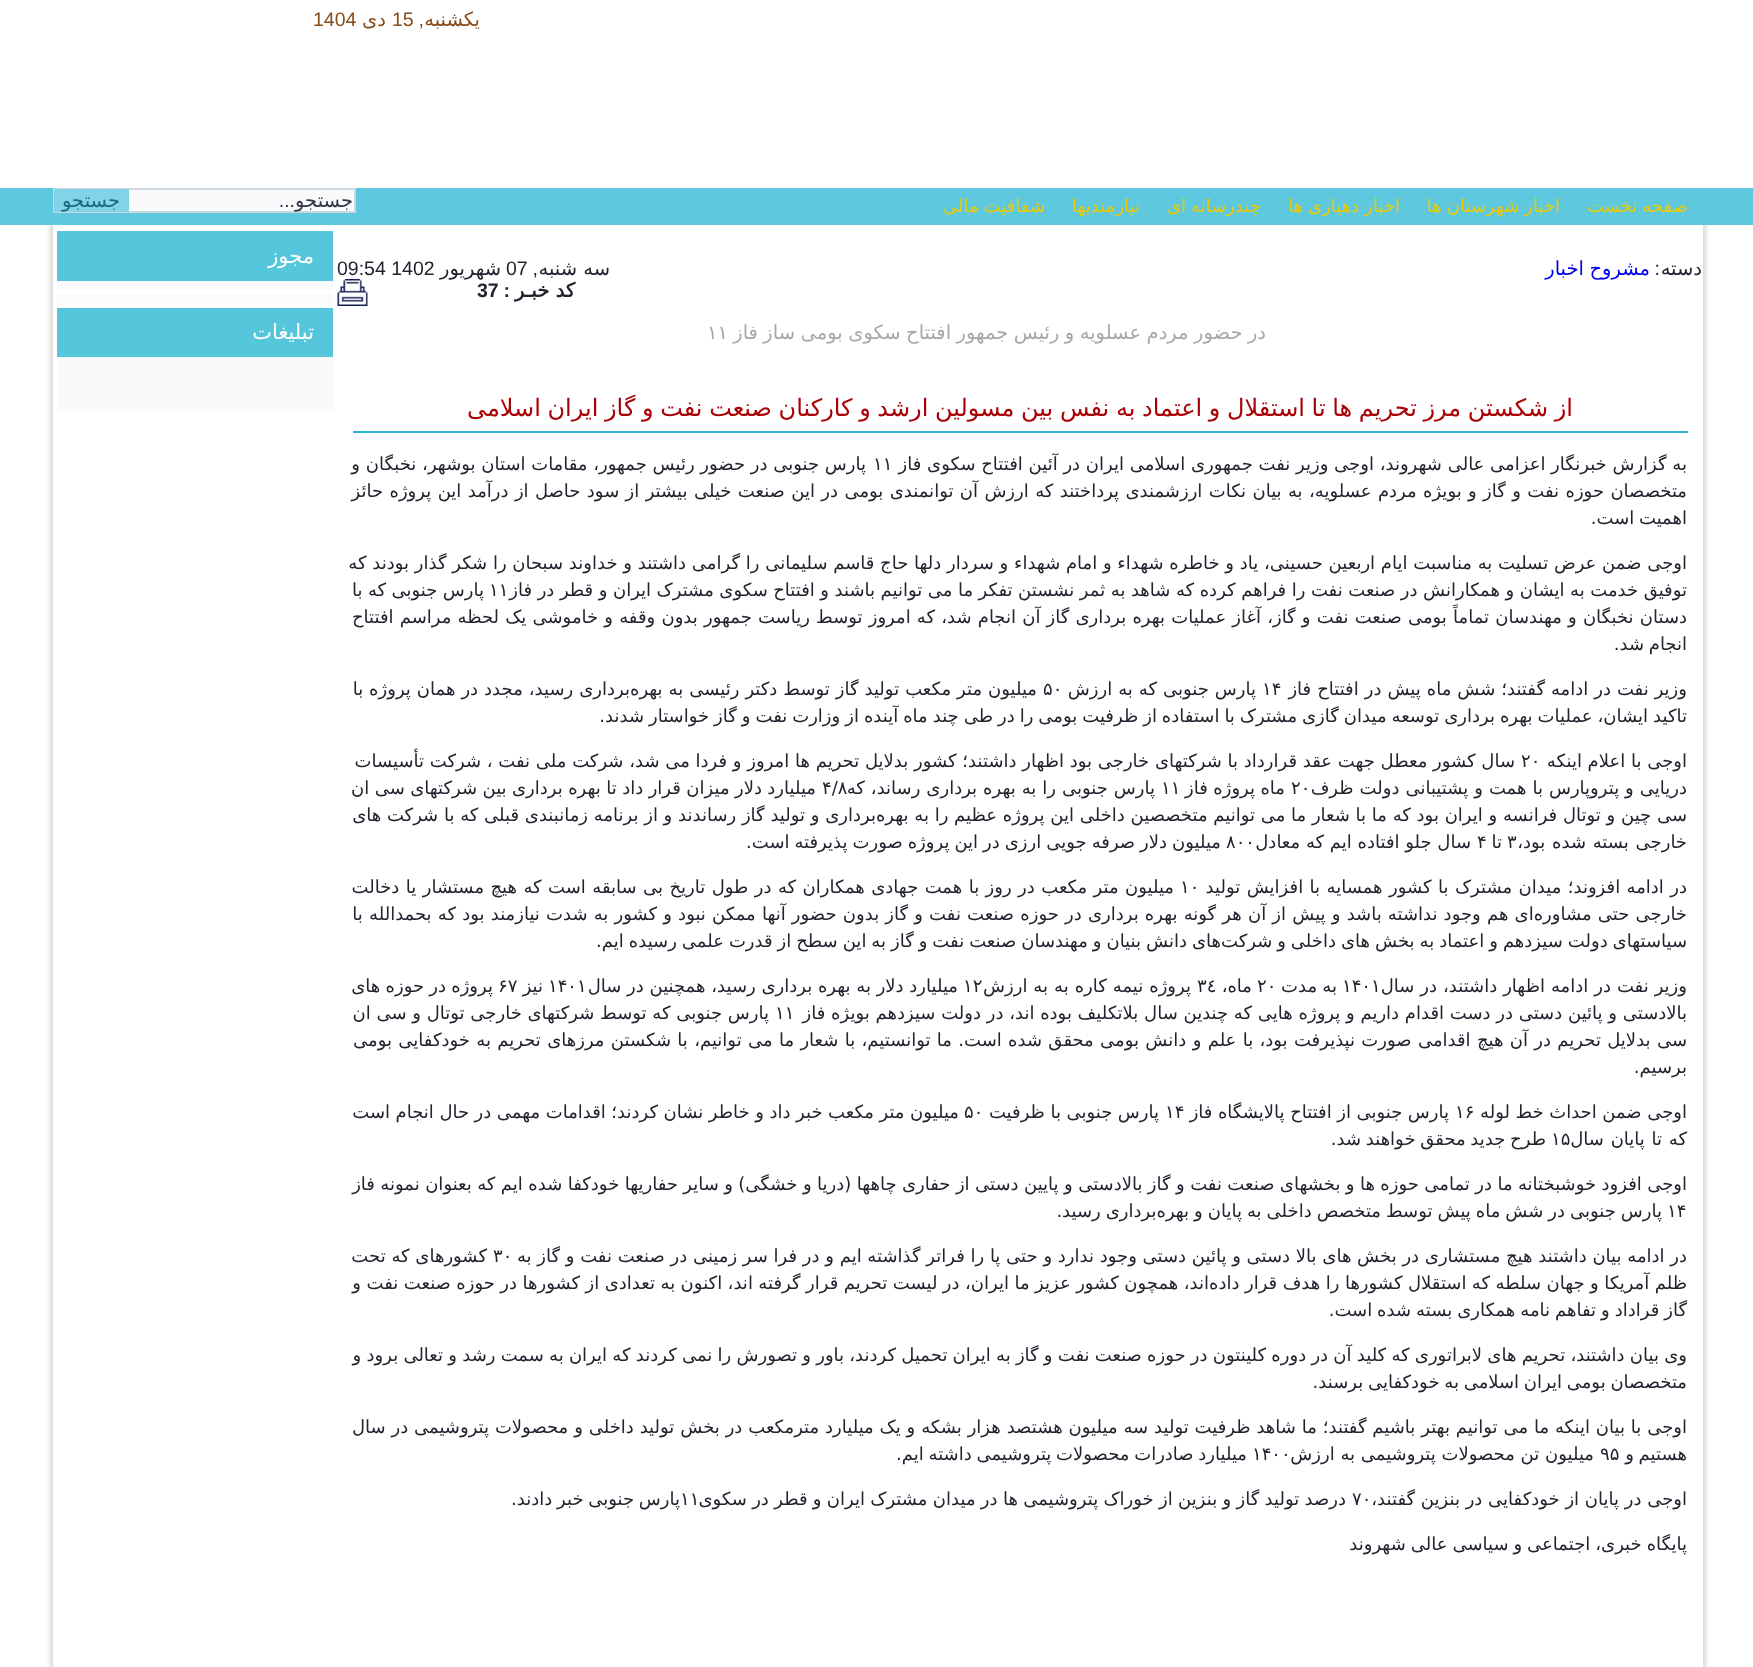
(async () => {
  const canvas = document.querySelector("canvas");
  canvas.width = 1753;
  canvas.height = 1667;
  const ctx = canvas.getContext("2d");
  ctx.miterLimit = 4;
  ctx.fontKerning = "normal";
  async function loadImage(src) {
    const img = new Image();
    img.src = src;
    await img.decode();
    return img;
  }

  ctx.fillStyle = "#ffffff";
  ctx.fillRect(0, 0, 1753, 1667);
  ctx.fillStyle = "rgba(0, 0, 0, 0.15)";
  ctx.filter = "blur(2px)";
  ctx.beginPath();
  ctx.rect(50, 222, 1656, 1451);
  ctx.fill();
  ctx.filter = "none";
  ctx.fillStyle = "#5ec9de";
  ctx.fillRect(0, 188, 1753, 37);
  ctx.fillStyle = "#f9fafb";
  ctx.fillRect(129, 190, 225, 21);
  ctx.strokeStyle = "#ccd6e0";
  ctx.lineWidth = 2;
  ctx.strokeRect(54, 189, 301, 23);
  ctx.fillStyle = "#80d4e5";
  ctx.fillRect(54, 189, 75, 23);
  ctx.fillStyle = "#ffffff";
  ctx.fillRect(53, 225, 1650, 1442);
  ctx.drawImage(await loadImage("img/1.png"), 337, 279, 31, 27);
  for (const [x, y, w, h, color] of [
    [353, 431, 1335, 2, "#2ab4cf"],
    [57, 281, 276, 9, "#f9fafb"],
    [57, 231, 276, 50, "#56c6dc"],
    [57, 294, 276, 9, "#f9fafb"],
    [57, 357, 276, 54, "#f9fafb"],
    [57, 308, 276, 49, "#56c6dc"],
  ]) {
    ctx.fillStyle = color;
    ctx.fillRect(x, y, w, h);
  }
  ctx.direction = "rtl";
  ctx.font = "19.5px DejaVu Sans";
  ctx.fillStyle = "#864c1c";
  ctx.fillText("یکشنبه", 480, 26);
  ctx.font = "19.5px Liberation Sans";
  ctx.fillText(",", 424, 26);
  ctx.direction = "ltr";
  ctx.fillText("15", 392, 26);
  ctx.direction = "rtl";
  ctx.font = "19.5px DejaVu Sans";
  ctx.fillText("دی", 386, 26);
  ctx.direction = "ltr";
  ctx.font = "19.5px Liberation Sans";
  ctx.fillText("1404", 313, 26);
  ctx.wordSpacing = "-0.75px";
  ctx.direction = "rtl";
  ctx.font = "18px DejaVu Sans";
  ctx.fillStyle = "#edc904";
  for (const [text, x, y] of [
    ["صفحه نخست", 1688, 212],
    ["اخبار شهرستان ها", 1560, 212],
    ["اخبار دهیاری ها", 1400, 212],
    ["چندرسانه ای", 1261, 212],
  ]) {
    ctx.fillText(text, x, y);
  }
  ctx.wordSpacing = "0px";
  ctx.fillText("نیازمندیها", 1140, 212);
  ctx.wordSpacing = "-0.75px";
  ctx.fillText("شفافیت مالی", 1045, 212);
  ctx.wordSpacing = "0px";
  ctx.font = "19.5px DejaVu Sans";
  ctx.fillStyle = "#333547";
  ctx.fillText("جستجو", 353, 207);
  ctx.font = "19.5px Liberation Sans";
  ctx.fillText("...", 295, 207);
  ctx.font = "19.5px DejaVu Sans";
  ctx.fillStyle = "#196a7b";
  ctx.fillText("جستجو", 120, 207);
  ctx.fillStyle = "#22232f";
  ctx.fillText("دسته", 1702, 275);
  ctx.font = "19.5px Liberation Sans";
  ctx.fillText(":", 1660, 275);
  ctx.wordSpacing = "-0.75px";
  ctx.font = "19.5px DejaVu Sans";
  ctx.fillStyle = "#0000ee";
  ctx.fillText("مشروح اخبار", 1650, 275);
  ctx.wordSpacing = "0px";
  ctx.fillStyle = "#22232f";
  ctx.fillText("سه شنبه", 610, 275);
  ctx.font = "19.5px Liberation Sans";
  ctx.fillText(",", 538, 275);
  ctx.direction = "ltr";
  ctx.fillText("07", 506, 275);
  ctx.direction = "rtl";
  ctx.font = "19.5px DejaVu Sans";
  ctx.fillText("شهریور", 501, 275);
  ctx.direction = "ltr";
  ctx.font = "19.5px Liberation Sans";
  ctx.fillText("09:54 1402", 337, 275);
  ctx.direction = "rtl";
  ctx.font = "bold 19.5px DejaVu Sans";
  ctx.fillText("کد خبـر", 575, 297);
  ctx.font = "bold 19.5px Liberation Sans";
  ctx.fillText(":", 510, 297);
  ctx.direction = "ltr";
  ctx.fillText("37", 477, 297);
  ctx.wordSpacing = "-0.75px";
  ctx.direction = "rtl";
  ctx.font = "19.5px DejaVu Sans";
  ctx.fillStyle = "#a8a8a8";
  ctx.fillText("در حضور مردم عسلویه و رئیس جمهور افتتاح سکوی بومی ساز فاز", 1266, 339);
  ctx.wordSpacing = "0px";
  ctx.direction = "ltr";
  ctx.fillText("۱۱", 707, 339);
  ctx.wordSpacing = "-1px";
  ctx.direction = "rtl";
  ctx.font = "24px DejaVu Sans";
  ctx.fillStyle = "#a90206";
  ctx.fillText("از شکستن مرز تحریم ها تا استقلال و اعتماد به نفس بین مسولین ارشد و کارکنان صنعت نفت و گاز ایران اسلامی", 1573, 416);
  ctx.wordSpacing = "0px";
  ctx.font = "18px DejaVu Sans";
  ctx.fillStyle = "#22232f";
  ctx.fillText("به گزارش خبرنگار اعزامی عالی شهروند، اوجی وزیر نفت جمهوری اسلامی ایران در آئین افتتاح سکوی فاز", 1687, 470);
  ctx.direction = "ltr";
  ctx.fillText("۱۱", 873, 470);
  ctx.direction = "rtl";
  ctx.fillText("پارس جنوبی در حضور رئیس جمهور، مقامات استان بوشهر، نخبگان و", 866, 470);
  ctx.wordSpacing = "0.65px";
  ctx.fillText("متخصصان حوزه نفت و گاز و بویژه مردم عسلویه، به بیان نکات ارزشمندی پرداختند که ارزش آن توانمندی بومی در این صنعت خیلی بیشتر از سود حاصل از درآمد این پروژه حائز", 1687, 497);
  ctx.wordSpacing = "-1px";
  ctx.fillText("اهمیت است.", 1687, 524);
  ctx.wordSpacing = "0px";
  ctx.fillText("اوجی ضمن عرض تسلیت به مناسبت ایام اربعین حسینی، یاد و خاطره شهداء و امام شهداء و سردار دلها حاج قاسم سلیمانی را گرامی داشتند و خداوند سبحان را شکر گذار بودند که", 1687, 569);
  ctx.wordSpacing = "-0.2px";
  ctx.fillText("توفیق خدمت به ایشان و همکارانش در صنعت نفت را فراهم کرده که شاهد به ثمر نشستن تفکر ما می توانیم باشند و افتتاح سکوی مشترک ایران و قطر در فاز", 1687, 596);
  ctx.wordSpacing = "0px";
  ctx.direction = "ltr";
  ctx.fillText("۱۱", 489, 596);
  ctx.wordSpacing = "-0.3px";
  ctx.direction = "rtl";
  ctx.fillText("پارس جنوبی که با", 484, 596);
  ctx.wordSpacing = "0.45px";
  ctx.fillText("دستان نخبگان و مهندسان تماماً بومی صنعت نفت و گاز، آغاز عملیات بهره برداری گاز آن انجام شد، که امروز توسط ریاست جمهور بدون وقفه و خاموشی یک لحظه مراسم افتتاح", 1687, 623);
  ctx.wordSpacing = "-1px";
  ctx.fillText("انجام شد.", 1687, 650);
  ctx.wordSpacing = "0.25px";
  ctx.fillText("وزیر نفت در ادامه گفتند؛ شش ماه پیش در افتتاح فاز", 1687, 695);
  ctx.wordSpacing = "0px";
  ctx.direction = "ltr";
  ctx.fillText("۱۴", 1262, 695);
  ctx.wordSpacing = "0.25px";
  ctx.direction = "rtl";
  ctx.fillText("پارس جنوبی که به ارزش", 1256, 695);
  ctx.wordSpacing = "0px";
  ctx.direction = "ltr";
  ctx.fillText("۵۰", 1043, 695);
  ctx.wordSpacing = "0.25px";
  ctx.direction = "rtl";
  ctx.fillText("میلیون متر مکعب تولید گاز توسط دکتر رئیسی به بهره‌برداری رسید، مجدد در همان پروژه با", 1037, 695);
  ctx.wordSpacing = "-0.75px";
  ctx.fillText("تاکید ایشان، عملیات بهره برداری توسعه میدان گازی مشترک با استفاده از ظرفیت بومی را در طی چند ماه آینده از وزارت نفت و گاز خواستار شدند.", 1687, 722);
  ctx.wordSpacing = "0px";
  ctx.fillText("اوجی با اعلام اینکه", 1687, 767);
  ctx.direction = "ltr";
  ctx.fillText("۲۰", 1521, 767);
  ctx.direction = "rtl";
  ctx.fillText("سال کشور معطل جهت عقد قرارداد با شرکتهای خارجی بود اظهار داشتند؛ کشور بدلایل تحریم ها امروز و فردا می شد، شرکت ملی نفت ، شرکت تأسیسات", 1515, 767);
  ctx.wordSpacing = "0.25px";
  ctx.fillText("دریایی و پتروپارس با همت و پشتیبانی دولت ظرف", 1687, 794);
  ctx.wordSpacing = "0px";
  ctx.direction = "ltr";
  ctx.fillText("۲۰", 1291, 794);
  ctx.wordSpacing = "-0.3px";
  ctx.direction = "rtl";
  ctx.fillText("ماه پروژه فاز", 1285, 794);
  ctx.wordSpacing = "0px";
  ctx.direction = "ltr";
  ctx.fillText("۱۱", 1161, 794);
  ctx.wordSpacing = "0.25px";
  ctx.direction = "rtl";
  ctx.fillText("پارس جنوبی را به بهره برداری رساند، که", 1155, 794);
  ctx.wordSpacing = "0px";
  ctx.direction = "ltr";
  ctx.fillText("۴/۸", 822, 794);
  ctx.wordSpacing = "-0.3px";
  ctx.direction = "rtl";
  ctx.fillText("میلیارد دلار میزان قرار داد تا بهره برداری بین شرکتهای سی ان", 816, 794);
  ctx.wordSpacing = "0px";
  ctx.fillText("سی چین و توتال فرانسه و ایران بود که ما با شعار ما می توانیم متخصصین داخلی این پروژه عظیم را به بهره‌برداری و تولید گاز رساندند و از برنامه زمانبندی قبلی که با شرکت های", 1687, 821);
  ctx.wordSpacing = "1px";
  ctx.fillText("خارجی بسته شده بود،", 1687, 848);
  ctx.wordSpacing = "0px";
  ctx.direction = "ltr";
  ctx.fillText("۳", 1507, 848);
  ctx.direction = "rtl";
  ctx.fillText("تا", 1502, 848);
  ctx.direction = "ltr";
  ctx.fillText("۴", 1477, 848);
  ctx.direction = "rtl";
  ctx.fillText("سال جلو افتاده ایم که معادل", 1471, 848);
  ctx.wordSpacing = "-0.75px";
  ctx.fillText("میلیون دلار صرفه جویی ارزی در این پروژه صورت پذیرفته است.", 1221, 848);
  ctx.wordSpacing = "0px";
  ctx.direction = "ltr";
  ctx.fillText("۸۰۰", 1226, 848);
  ctx.wordSpacing = "0.7px";
  ctx.direction = "rtl";
  ctx.fillText("در ادامه افزوند؛ میدان مشترک با کشور همسایه با افزایش تولید", 1687, 893);
  ctx.wordSpacing = "0px";
  ctx.direction = "ltr";
  ctx.fillText("۱۰", 1180, 893);
  ctx.wordSpacing = "0.7px";
  ctx.direction = "rtl";
  ctx.fillText("میلیون متر مکعب در روز با همت جهادی همکاران که در طول تاریخ بی سابقه است که هیچ مستشار یا دخالت", 1174, 893);
  ctx.wordSpacing = "0.45px";
  ctx.fillText("خارجی حتی مشاوره‌ای هم وجود نداشته باشد و پیش از آن هر گونه بهره برداری در حوزه صنعت نفت و گاز بدون حضور آنها ممکن نبود و کشور به شدت نیازمند بود که بحمدالله با", 1687, 920);
  ctx.wordSpacing = "-0.75px";
  ctx.fillText("سیاستهای دولت سیزدهم و اعتماد به بخش های داخلی و شرکت‌های دانش بنیان و مهندسان صنعت نفت و گاز به این سطح از قدرت علمی رسیده ایم.", 1687, 947);
  ctx.wordSpacing = "0.25px";
  ctx.fillText("وزیر نفت در ادامه اظهار داشتند، در سال", 1687, 992);
  ctx.wordSpacing = "0px";
  ctx.direction = "ltr";
  ctx.fillText("۱۴۰۱", 1342, 992);
  ctx.wordSpacing = "-0.5px";
  ctx.direction = "rtl";
  ctx.fillText("به مدت", 1337, 992);
  ctx.wordSpacing = "0px";
  ctx.direction = "ltr";
  ctx.fillText("۲۰", 1257, 992);
  ctx.direction = "rtl";
  ctx.fillText("ماه،", 1252, 992);
  ctx.direction = "ltr";
  ctx.fillText("٣٤", 1197, 992);
  ctx.wordSpacing = "0.25px";
  ctx.direction = "rtl";
  ctx.fillText("پروژه نیمه کاره به به ارزش", 1191, 992);
  ctx.wordSpacing = "0px";
  ctx.direction = "ltr";
  ctx.fillText("۱۲", 963, 992);
  ctx.direction = "rtl";
  ctx.fillText("میلیارد دلار به بهره برداری رسید، همچنین در سال", 958, 992);
  ctx.direction = "ltr";
  ctx.fillText("۱۴۰۱", 548, 992);
  ctx.direction = "rtl";
  ctx.fillText("نیز", 543, 992);
  ctx.direction = "ltr";
  ctx.fillText("۶۷", 498, 992);
  ctx.wordSpacing = "-0.5px";
  ctx.direction = "rtl";
  ctx.fillText("پروژه در حوزه های", 493, 992);
  ctx.wordSpacing = "0px";
  ctx.fillText("بالادستی و پائین دستی در دست اقدام داریم و پروژه هایی که چندین سال بلاتکلیف بوده اند، در دولت سیزدهم بویژه فاز", 1687, 1019);
  ctx.direction = "ltr";
  ctx.fillText("۱۱", 775, 1019);
  ctx.direction = "rtl";
  ctx.fillText("پارس جنوبی که توسط شرکتهای خارجی توتال و سی ان", 769, 1019);
  ctx.wordSpacing = "0.6px";
  ctx.fillText("سی بدلایل تحریم در آن هیچ اقدامی صورت نپذیرفت بود، با علم و دانش بومی محقق شده است. ما توانستیم، با شعار ما می توانیم، با شکستن مرزهای تحریم به خودکفایی بومی", 1687, 1046);
  ctx.wordSpacing = "0px";
  ctx.fillText("برسیم.", 1687, 1073);
  ctx.wordSpacing = "-0.2px";
  ctx.fillText("اوجی ضمن احداث خط لوله", 1687, 1118);
  ctx.wordSpacing = "0px";
  ctx.direction = "ltr";
  ctx.fillText("۱۶", 1455, 1118);
  ctx.wordSpacing = "-0.2px";
  ctx.direction = "rtl";
  ctx.fillText("پارس جنوبی از افتتاح پالایشگاه فاز", 1449, 1118);
  ctx.wordSpacing = "0px";
  ctx.direction = "ltr";
  ctx.fillText("۱۴", 1165, 1118);
  ctx.wordSpacing = "-0.2px";
  ctx.direction = "rtl";
  ctx.fillText("پارس جنوبی با ظرفیت", 1159, 1118);
  ctx.wordSpacing = "0px";
  ctx.direction = "ltr";
  ctx.fillText("۵۰", 964, 1118);
  ctx.wordSpacing = "-0.2px";
  ctx.direction = "rtl";
  ctx.fillText("میلیون متر مکعب خبر داد و خاطر نشان کردند؛ اقدامات مهمی در حال انجام است", 959, 1118);
  ctx.wordSpacing = "1px";
  ctx.fillText("که تا پایان سال", 1687, 1145);
  ctx.wordSpacing = "0px";
  ctx.direction = "ltr";
  ctx.fillText("۱۵", 1551, 1145);
  ctx.wordSpacing = "-1px";
  ctx.direction = "rtl";
  ctx.fillText("طرح جدید محقق خواهند شد.", 1546, 1145);
  ctx.wordSpacing = "-0.3px";
  ctx.fillText("اوجی افزود خوشبختانه ما در تمامی حوزه ها و بخشهای صنعت نفت و گاز بالادستی و پایین دستی از حفاری چاهها (دریا و خشگی) و سایر حفاریها خودکفا شده ایم که بعنوان نمونه فاز", 1687, 1190);
  ctx.wordSpacing = "-0.75px";
  ctx.fillText("پارس جنوبی در شش ماه پیش توسط متخصص داخلی به پایان و بهره‌برداری رسید.", 1662, 1217);
  ctx.wordSpacing = "0px";
  ctx.direction = "ltr";
  ctx.fillText("۱۴", 1667, 1217);
  ctx.direction = "rtl";
  ctx.fillText("در ادامه بیان داشتند هیچ مستشاری در بخش های بالا دستی و پائین دستی وجود ندارد و حتی پا را فراتر گذاشته ایم و در فرا سر زمینی در صنعت نفت و گاز به", 1687, 1262);
  ctx.direction = "ltr";
  ctx.fillText("۳۰", 493, 1262);
  ctx.direction = "rtl";
  ctx.fillText("کشورهای که تحت", 487, 1262);
  ctx.wordSpacing = "-0.25px";
  ctx.fillText("ظلم آمریکا و جهان سلطه که استقلال کشورها را هدف قرار داده‌اند، همچون کشور عزیز ما ایران، در لیست تحریم قرار گرفته اند، اکنون به تعدادی از کشورها در حوزه صنعت نفت و", 1687, 1289);
  ctx.wordSpacing = "-0.75px";
  ctx.fillText("گاز قراداد و تفاهم نامه همکاری بسته شده است.", 1687, 1316);
  ctx.wordSpacing = "-0.5px";
  ctx.fillText("وی بیان داشتند، تحریم های لابراتوری که کلید آن در دوره کلینتون در حوزه صنعت نفت و گاز به ایران تحمیل کردند، باور و تصورش را نمی کردند که ایران به سمت رشد و تعالی برود و", 1687, 1361);
  ctx.wordSpacing = "-1px";
  ctx.fillText("متخصصان بومی ایران اسلامی به خودکفایی برسند.", 1687, 1388);
  ctx.wordSpacing = "0.15px";
  ctx.fillText("اوجی با بیان اینکه ما می توانیم بهتر باشیم گفتند؛ ما شاهد ظرفیت تولید سه میلیون هشتصد هزار بشکه و یک میلیارد مترمکعب در بخش تولید داخلی و محصولات پتروشیمی در سال", 1687, 1433);
  ctx.wordSpacing = "-1px";
  ctx.fillText("هستیم و", 1687, 1460);
  ctx.wordSpacing = "0px";
  ctx.direction = "ltr";
  ctx.fillText("۹۵", 1600, 1460);
  ctx.direction = "rtl";
  ctx.fillText("میلیون تن محصولات پتروشیمی به ارزش", 1594, 1460);
  ctx.direction = "ltr";
  ctx.fillText("۱۴۰۰", 1252, 1460);
  ctx.wordSpacing = "-1px";
  ctx.direction = "rtl";
  ctx.fillText("میلیارد صادرات محصولات پتروشیمی داشته ایم.", 1247, 1460);
  ctx.wordSpacing = "0px";
  ctx.fillText("اوجی در پایان از خودکفایی در بنزین گفتند،", 1687, 1505);
  ctx.wordSpacing = "-0.4px";
  ctx.fillText("درصد تولید گاز و بنزین از خوراک پتروشیمی ها در میدان مشترک ایران و قطر در سکوی", 1346, 1505);
  ctx.wordSpacing = "0px";
  ctx.direction = "ltr";
  ctx.fillText("۷۰", 1352, 1505);
  ctx.wordSpacing = "-1px";
  ctx.direction = "rtl";
  ctx.fillText("پارس جنوبی خبر دادند.", 680, 1505);
  ctx.wordSpacing = "0px";
  ctx.direction = "ltr";
  ctx.fillText("۱۱", 680, 1505);
  ctx.wordSpacing = "-0.75px";
  ctx.direction = "rtl";
  ctx.fillText("پایگاه خبری، اجتماعی و سیاسی عالی شهروند", 1687, 1550);
  ctx.wordSpacing = "0px";
  ctx.font = "21px DejaVu Sans";
  ctx.fillStyle = "#ffffff";
  ctx.fillText("مجوز", 314, 263);
  ctx.fillText("تبلیغات", 314, 339);
})();
